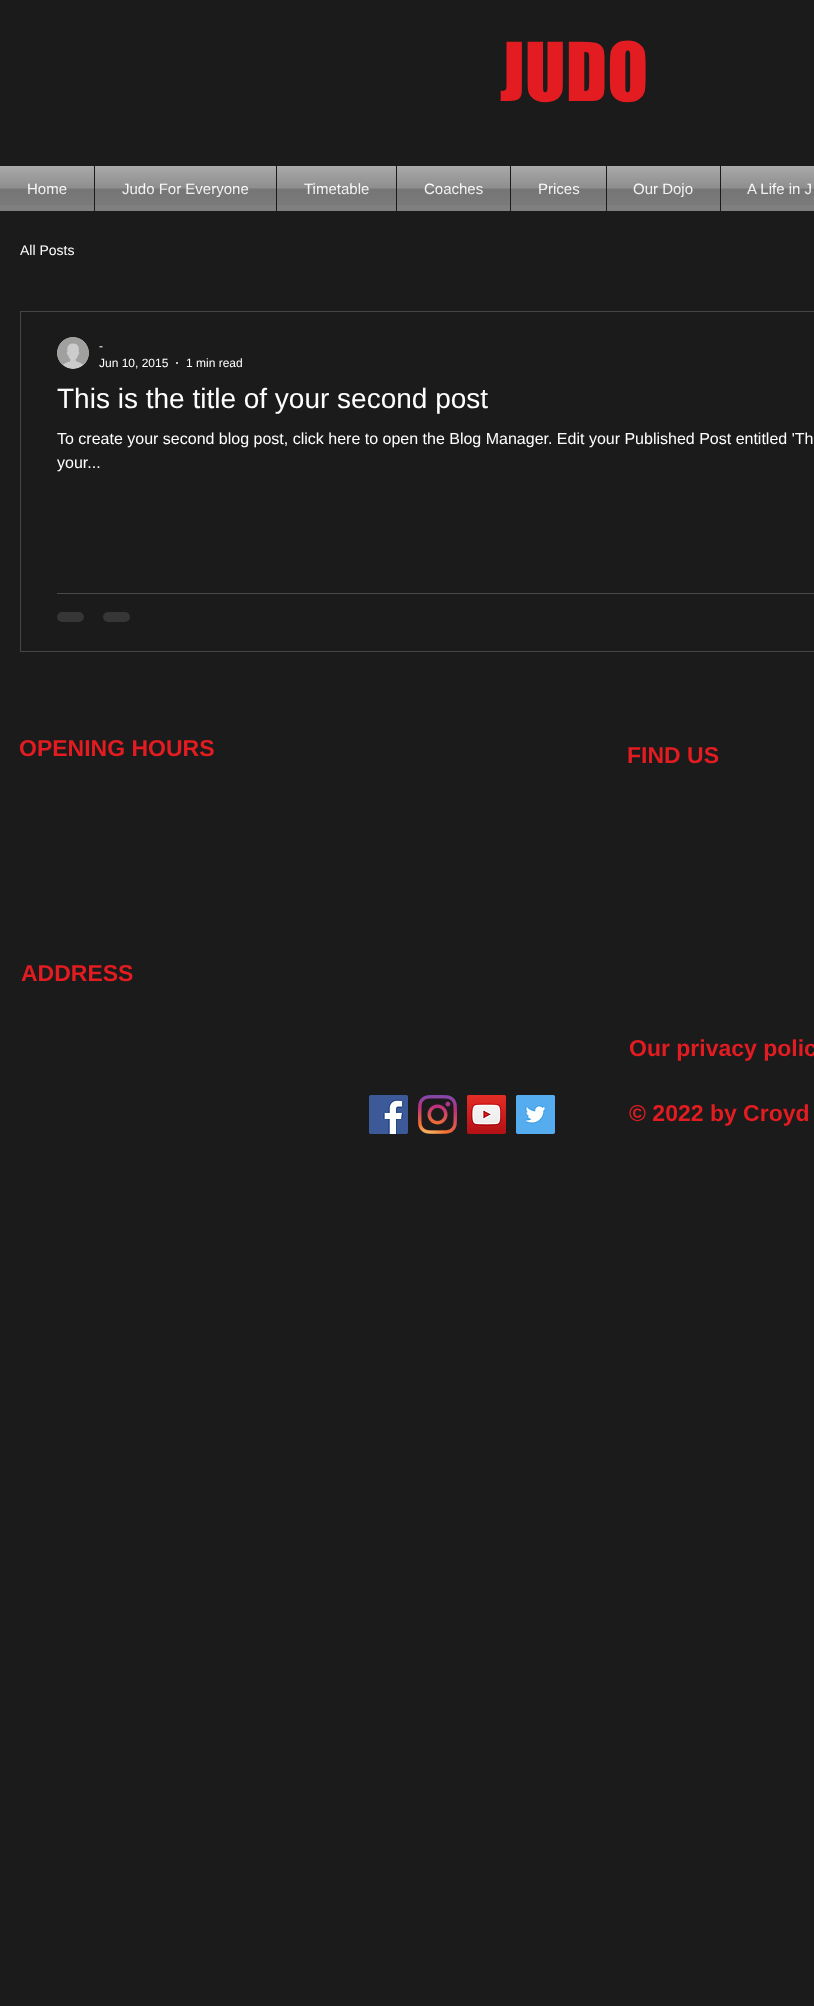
(async () => {
  const canvas = document.querySelector("canvas");
  canvas.width = 814;
  canvas.height = 2006;
  const ctx = canvas.getContext("2d");
  ctx.miterLimit = 4;
  ctx.fontKerning = "normal";
  async function loadImage(src) {
    const img = new Image();
    img.src = src;
    await img.decode();
    return img;
  }

  ctx.fillStyle = "#1b1b1b";
  ctx.fillRect(0, 0, 814, 2006);
  for (const [x, y, w, h, color] of [
    [0, 166, 94, 45, "#7f7f7f"],
    [95, 166, 181, 45, "#7f7f7f"],
    [277, 166, 119, 45, "#7f7f7f"],
    [397, 166, 113, 45, "#7f7f7f"],
    [511, 166, 95, 45, "#7f7f7f"],
    [607, 166, 113, 45, "#7f7f7f"],
    [721, 166, 93, 45, "#7f7f7f"],
  ]) {
    ctx.fillStyle = color;
    ctx.fillRect(x, y, w, h);
  }
  ctx.strokeStyle = "#464646";
  ctx.strokeRect(20.5, 311.5, 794, 340);
  ctx.drawImage(await loadImage("img/8.png"), 57, 337, 32, 32);
  ctx.fillStyle = "#ffffff";
  ctx.beginPath();
  ctx.arc(177, 363, 1, 0, Math.PI * 2);
  ctx.fill();
  ctx.fillStyle = "#494949";
  ctx.fillRect(57, 593, 757, 1);
  ctx.fillStyle = "#363636";
  ctx.beginPath();
  ctx.roundRect(57, 612, 27, 10, 5);
  ctx.fill();
  ctx.beginPath();
  ctx.roundRect(103, 612, 27, 10, 5);
  ctx.fill();
  ctx.drawImage(await loadImage("img/9.png"), 369, 1095, 39, 39);
  ctx.drawImage(await loadImage("img/10.png"), 418, 1095, 39, 39);
  ctx.drawImage(await loadImage("img/11.png"), 467, 1095, 39, 39);
  ctx.drawImage(await loadImage("img/12.png"), 516, 1095, 39, 39);
  ctx.font = "75px 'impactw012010'";
  ctx.fillStyle = "#e21c21";
  ctx.fillText("JUDO", 500, 101);
  ctx.font = "15px Liberation Sans";
  ctx.fillStyle = "#ffffff";
  ctx.fillText("Home", 27, 194);
  ctx.drawImage(await loadImage("img/1.png"), 0, 166, 94, 39);
  ctx.fillText("Judo For Everyone", 122, 194);
  ctx.drawImage(await loadImage("img/2.png"), 95, 166, 181, 39);
  ctx.fillText("Timetable", 304, 194);
  ctx.drawImage(await loadImage("img/3.png"), 277, 166, 119, 39);
  ctx.fillText("Coaches", 424, 194);
  ctx.drawImage(await loadImage("img/4.png"), 397, 166, 113, 39);
  ctx.fillText("Prices", 538, 194);
  ctx.drawImage(await loadImage("img/5.png"), 511, 166, 95, 39);
  ctx.fillText("Our Dojo", 633, 194);
  ctx.drawImage(await loadImage("img/6.png"), 607, 166, 113, 39);
  ctx.fillText("A Life in J", 747, 194);
  ctx.drawImage(await loadImage("img/7.png"), 721, 166, 93, 39);
  ctx.font = "14px Liberation Sans";
  ctx.fillText("All Posts", 20, 255);
  ctx.font = "12px Liberation Sans";
  for (const [text, x, y] of [
    ["-", 99, 350],
    ["Jun 10, 2015", 99, 367],
    ["1 min read", 186, 367],
  ]) {
    ctx.fillText(text, x, y);
  }
  ctx.font = "28px Liberation Sans";
  ctx.fillText("This is the title of your second post", 57, 408);
  ctx.font = "16px Liberation Sans";
  ctx.fillText("To create your second blog post, click here to open the Blog Manager. Edit your Published Post entitled 'Th", 57, 444);
  ctx.fillText("your...", 57, 468);
  ctx.font = "bold 23px Liberation Sans";
  ctx.fillStyle = "#e21c21";
  for (const [text, x, y] of [
    ["OPENING HOURS", 19, 756],
    ["FIND US", 627, 763],
    ["ADDRESS", 21, 981],
    ["Our privacy polic", 629, 1056],
    ["© 2022 by Croyd", 629, 1121],
  ]) {
    ctx.fillText(text, x, y);
  }
})();
